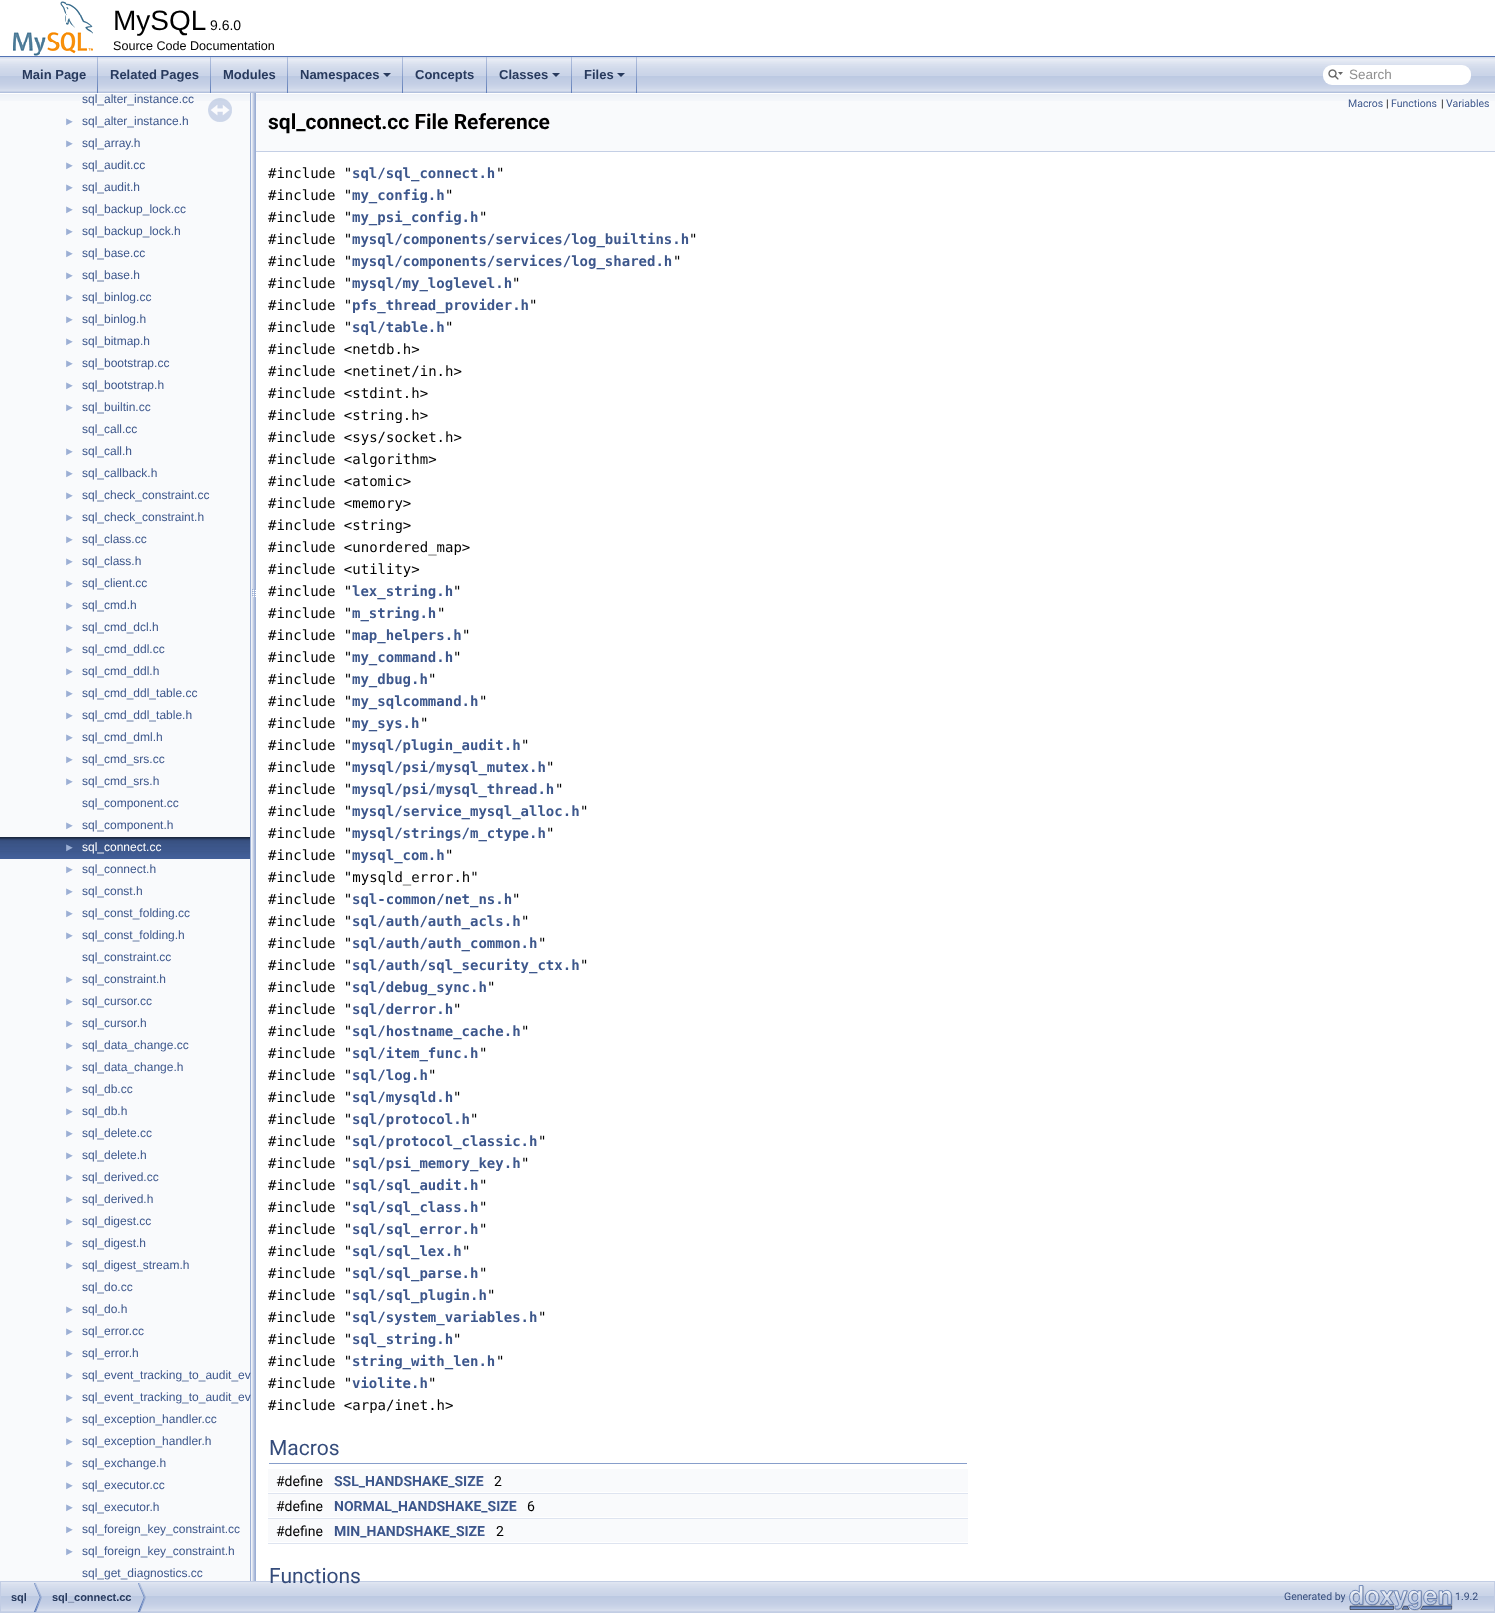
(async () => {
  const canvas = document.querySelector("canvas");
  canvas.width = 1495;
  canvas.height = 1613;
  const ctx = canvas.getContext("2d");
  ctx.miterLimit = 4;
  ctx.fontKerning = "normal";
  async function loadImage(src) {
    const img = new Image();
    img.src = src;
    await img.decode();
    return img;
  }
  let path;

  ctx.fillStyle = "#ffffff";
  ctx.fillRect(0, 0, 1495, 1613);
  ctx.fillStyle = "#5373b4";
  ctx.fillRect(0, 56, 1495, 1);
  ctx.drawImage(await loadImage("img/1.png"), 13, 1, 80, 55);
  ctx.drawImage(await loadImage("img/2.png"), 0, 57, 1495, 36);
  ctx.drawImage(await loadImage("img/3.png"), 97, 57, 1, 36);
  ctx.drawImage(await loadImage("img/3.png"), 210, 57, 1, 36);
  ctx.drawImage(await loadImage("img/3.png"), 287, 57, 1, 36);
  ctx.drawImage(await loadImage("img/3.png"), 402, 57, 1, 36);
  ctx.fillStyle = "#283a5d";
  path = new Path2D("M383 73H391L387 77Z");
  ctx.fill(path);
  ctx.drawImage(await loadImage("img/3.png"), 486, 57, 1, 36);
  ctx.drawImage(await loadImage("img/3.png"), 571, 57, 1, 36);
  path = new Path2D("M552 73H560L556 77Z");
  ctx.fill(path);
  ctx.drawImage(await loadImage("img/3.png"), 636, 57, 1, 36);
  path = new Path2D("M617 73H625L621 77Z");
  ctx.fill(path);
  ctx.fillStyle = "#ffffff";
  ctx.beginPath();
  ctx.roundRect(1323, 65, 148, 20, 9);
  ctx.fill();
  ctx.drawImage(await loadImage("img/4.png"), 1328, 69, 15, 11);
  ctx.fillStyle = "#f9fafc";
  ctx.fillRect(0, 101, 250, 1480);
  ctx.drawImage(await loadImage("img/5.png"), 0, 93, 250, 8);
  ctx.drawImage(await loadImage("img/6.png"), 0, 837, 250, 22);
  ctx.drawImage(await loadImage("img/7.png"), 208, 98, 24, 24);
  ctx.drawImage(await loadImage("img/8.png"), 250, 93, 6, 1488);
  ctx.fillRect(256, 101, 1239, 50);
  ctx.drawImage(await loadImage("img/9.png"), 256, 93, 1239, 8);
  for (const [x, y, w, h, color] of [
    [256, 151, 1239, 1, "#c4cfe5"],
    [269, 1463, 698, 1, "#879ecb"],
    [268, 1469, 700, 23, "#f9fafc"],
    [268, 1493, 700, 1, "#dee4f0"],
    [268, 1494, 700, 23, "#f9fafc"],
    [268, 1518, 700, 1, "#dee4f0"],
    [268, 1519, 700, 23, "#f9fafc"],
    [268, 1543, 700, 1, "#dee4f0"],
  ]) {
    ctx.fillStyle = color;
    ctx.fillRect(x, y, w, h);
  }
  ctx.drawImage(await loadImage("img/10.png"), 1, 1582, 1493, 30);
  ctx.strokeStyle = "#c2cde4";
  ctx.strokeRect(0.5, 1581.5, 1494, 31);
  ctx.drawImage(await loadImage("img/11.png"), 34, 1583, 8, 29);
  ctx.drawImage(await loadImage("img/11.png"), 138, 1583, 8, 29);
  ctx.drawImage(await loadImage("img/12.png"), 1349, 1585, 104, 26);
  ctx.font = "28px Liberation Sans";
  ctx.fillStyle = "#000000";
  ctx.fillText("MySQL", 113, 30);
  ctx.font = "14px Liberation Sans";
  ctx.fillText("9.6.0", 210, 30);
  ctx.font = "12.6px Liberation Sans";
  ctx.fillText("Source Code Documentation", 113, 50);
  ctx.font = "bold 13px Liberation Sans";
  ctx.fillStyle = "#283a5d";
  for (const [text, x, y] of [
    ["Main Page", 22, 79],
    ["Related Pages", 110, 79],
    ["Modules", 223, 79],
    ["Namespaces", 300, 79],
    ["Concepts", 415, 79],
    ["Classes", 499, 79],
    ["Files", 584, 79],
  ]) {
    ctx.fillText(text, x, y);
  }
  ctx.font = "13.5px Liberation Sans";
  ctx.fillStyle = "#909090";
  ctx.fillText("Search", 1349, 79);
  ctx.font = "12px Liberation Sans";
  ctx.fillStyle = "#3d578c";
  ctx.fillText("sql_alter_instance.cc", 82, 103);
  ctx.font = "11px Liberation Sans";
  ctx.fillStyle = "#9cafd4";
  ctx.fillText("►", 64, 125);
  ctx.font = "12px Liberation Sans";
  ctx.fillStyle = "#3d578c";
  ctx.fillText("sql_alter_instance.h", 82, 125);
  ctx.font = "11px Liberation Sans";
  ctx.fillStyle = "#9cafd4";
  ctx.fillText("►", 64, 147);
  ctx.font = "12px Liberation Sans";
  ctx.fillStyle = "#3d578c";
  ctx.fillText("sql_array.h", 82, 147);
  ctx.font = "11px Liberation Sans";
  ctx.fillStyle = "#9cafd4";
  ctx.fillText("►", 64, 169);
  ctx.font = "12px Liberation Sans";
  ctx.fillStyle = "#3d578c";
  ctx.fillText("sql_audit.cc", 82, 169);
  ctx.font = "11px Liberation Sans";
  ctx.fillStyle = "#9cafd4";
  ctx.fillText("►", 64, 191);
  ctx.font = "12px Liberation Sans";
  ctx.fillStyle = "#3d578c";
  ctx.fillText("sql_audit.h", 82, 191);
  ctx.font = "11px Liberation Sans";
  ctx.fillStyle = "#9cafd4";
  ctx.fillText("►", 64, 213);
  ctx.font = "12px Liberation Sans";
  ctx.fillStyle = "#3d578c";
  ctx.fillText("sql_backup_lock.cc", 82, 213);
  ctx.font = "11px Liberation Sans";
  ctx.fillStyle = "#9cafd4";
  ctx.fillText("►", 64, 235);
  ctx.font = "12px Liberation Sans";
  ctx.fillStyle = "#3d578c";
  ctx.fillText("sql_backup_lock.h", 82, 235);
  ctx.font = "11px Liberation Sans";
  ctx.fillStyle = "#9cafd4";
  ctx.fillText("►", 64, 257);
  ctx.font = "12px Liberation Sans";
  ctx.fillStyle = "#3d578c";
  ctx.fillText("sql_base.cc", 82, 257);
  ctx.font = "11px Liberation Sans";
  ctx.fillStyle = "#9cafd4";
  ctx.fillText("►", 64, 279);
  ctx.font = "12px Liberation Sans";
  ctx.fillStyle = "#3d578c";
  ctx.fillText("sql_base.h", 82, 279);
  ctx.font = "11px Liberation Sans";
  ctx.fillStyle = "#9cafd4";
  ctx.fillText("►", 64, 301);
  ctx.font = "12px Liberation Sans";
  ctx.fillStyle = "#3d578c";
  ctx.fillText("sql_binlog.cc", 82, 301);
  ctx.font = "11px Liberation Sans";
  ctx.fillStyle = "#9cafd4";
  ctx.fillText("►", 64, 323);
  ctx.font = "12px Liberation Sans";
  ctx.fillStyle = "#3d578c";
  ctx.fillText("sql_binlog.h", 82, 323);
  ctx.font = "11px Liberation Sans";
  ctx.fillStyle = "#9cafd4";
  ctx.fillText("►", 64, 345);
  ctx.font = "12px Liberation Sans";
  ctx.fillStyle = "#3d578c";
  ctx.fillText("sql_bitmap.h", 82, 345);
  ctx.font = "11px Liberation Sans";
  ctx.fillStyle = "#9cafd4";
  ctx.fillText("►", 64, 367);
  ctx.font = "12px Liberation Sans";
  ctx.fillStyle = "#3d578c";
  ctx.fillText("sql_bootstrap.cc", 82, 367);
  ctx.font = "11px Liberation Sans";
  ctx.fillStyle = "#9cafd4";
  ctx.fillText("►", 64, 389);
  ctx.font = "12px Liberation Sans";
  ctx.fillStyle = "#3d578c";
  ctx.fillText("sql_bootstrap.h", 82, 389);
  ctx.font = "11px Liberation Sans";
  ctx.fillStyle = "#9cafd4";
  ctx.fillText("►", 64, 411);
  ctx.font = "12px Liberation Sans";
  ctx.fillStyle = "#3d578c";
  ctx.fillText("sql_builtin.cc", 82, 411);
  ctx.fillText("sql_call.cc", 82, 433);
  ctx.font = "11px Liberation Sans";
  ctx.fillStyle = "#9cafd4";
  ctx.fillText("►", 64, 455);
  ctx.font = "12px Liberation Sans";
  ctx.fillStyle = "#3d578c";
  ctx.fillText("sql_call.h", 82, 455);
  ctx.font = "11px Liberation Sans";
  ctx.fillStyle = "#9cafd4";
  ctx.fillText("►", 64, 477);
  ctx.font = "12px Liberation Sans";
  ctx.fillStyle = "#3d578c";
  ctx.fillText("sql_callback.h", 82, 477);
  ctx.font = "11px Liberation Sans";
  ctx.fillStyle = "#9cafd4";
  ctx.fillText("►", 64, 499);
  ctx.font = "12px Liberation Sans";
  ctx.fillStyle = "#3d578c";
  ctx.fillText("sql_check_constraint.cc", 82, 499);
  ctx.font = "11px Liberation Sans";
  ctx.fillStyle = "#9cafd4";
  ctx.fillText("►", 64, 521);
  ctx.font = "12px Liberation Sans";
  ctx.fillStyle = "#3d578c";
  ctx.fillText("sql_check_constraint.h", 82, 521);
  ctx.font = "11px Liberation Sans";
  ctx.fillStyle = "#9cafd4";
  ctx.fillText("►", 64, 543);
  ctx.font = "12px Liberation Sans";
  ctx.fillStyle = "#3d578c";
  ctx.fillText("sql_class.cc", 82, 543);
  ctx.font = "11px Liberation Sans";
  ctx.fillStyle = "#9cafd4";
  ctx.fillText("►", 64, 565);
  ctx.font = "12px Liberation Sans";
  ctx.fillStyle = "#3d578c";
  ctx.fillText("sql_class.h", 82, 565);
  ctx.font = "11px Liberation Sans";
  ctx.fillStyle = "#9cafd4";
  ctx.fillText("►", 64, 587);
  ctx.font = "12px Liberation Sans";
  ctx.fillStyle = "#3d578c";
  ctx.fillText("sql_client.cc", 82, 587);
  ctx.font = "11px Liberation Sans";
  ctx.fillStyle = "#9cafd4";
  ctx.fillText("►", 64, 609);
  ctx.font = "12px Liberation Sans";
  ctx.fillStyle = "#3d578c";
  ctx.fillText("sql_cmd.h", 82, 609);
  ctx.font = "11px Liberation Sans";
  ctx.fillStyle = "#9cafd4";
  ctx.fillText("►", 64, 631);
  ctx.font = "12px Liberation Sans";
  ctx.fillStyle = "#3d578c";
  ctx.fillText("sql_cmd_dcl.h", 82, 631);
  ctx.font = "11px Liberation Sans";
  ctx.fillStyle = "#9cafd4";
  ctx.fillText("►", 64, 653);
  ctx.font = "12px Liberation Sans";
  ctx.fillStyle = "#3d578c";
  ctx.fillText("sql_cmd_ddl.cc", 82, 653);
  ctx.font = "11px Liberation Sans";
  ctx.fillStyle = "#9cafd4";
  ctx.fillText("►", 64, 675);
  ctx.font = "12px Liberation Sans";
  ctx.fillStyle = "#3d578c";
  ctx.fillText("sql_cmd_ddl.h", 82, 675);
  ctx.font = "11px Liberation Sans";
  ctx.fillStyle = "#9cafd4";
  ctx.fillText("►", 64, 697);
  ctx.font = "12px Liberation Sans";
  ctx.fillStyle = "#3d578c";
  ctx.fillText("sql_cmd_ddl_table.cc", 82, 697);
  ctx.font = "11px Liberation Sans";
  ctx.fillStyle = "#9cafd4";
  ctx.fillText("►", 64, 719);
  ctx.font = "12px Liberation Sans";
  ctx.fillStyle = "#3d578c";
  ctx.fillText("sql_cmd_ddl_table.h", 82, 719);
  ctx.font = "11px Liberation Sans";
  ctx.fillStyle = "#9cafd4";
  ctx.fillText("►", 64, 741);
  ctx.font = "12px Liberation Sans";
  ctx.fillStyle = "#3d578c";
  ctx.fillText("sql_cmd_dml.h", 82, 741);
  ctx.font = "11px Liberation Sans";
  ctx.fillStyle = "#9cafd4";
  ctx.fillText("►", 64, 763);
  ctx.font = "12px Liberation Sans";
  ctx.fillStyle = "#3d578c";
  ctx.fillText("sql_cmd_srs.cc", 82, 763);
  ctx.font = "11px Liberation Sans";
  ctx.fillStyle = "#9cafd4";
  ctx.fillText("►", 64, 785);
  ctx.font = "12px Liberation Sans";
  ctx.fillStyle = "#3d578c";
  ctx.fillText("sql_cmd_srs.h", 82, 785);
  ctx.fillText("sql_component.cc", 82, 807);
  ctx.font = "11px Liberation Sans";
  ctx.fillStyle = "#9cafd4";
  ctx.fillText("►", 64, 829);
  ctx.font = "12px Liberation Sans";
  ctx.fillStyle = "#3d578c";
  ctx.fillText("sql_component.h", 82, 829);
  ctx.font = "11px Liberation Sans";
  ctx.fillStyle = "#9cafd4";
  ctx.fillText("►", 64, 851);
  ctx.font = "12px Liberation Sans";
  ctx.fillStyle = "#ffffff";
  ctx.fillText("sql_connect.cc", 82, 851);
  ctx.font = "11px Liberation Sans";
  ctx.fillStyle = "#9cafd4";
  ctx.fillText("►", 64, 873);
  ctx.font = "12px Liberation Sans";
  ctx.fillStyle = "#3d578c";
  ctx.fillText("sql_connect.h", 82, 873);
  ctx.font = "11px Liberation Sans";
  ctx.fillStyle = "#9cafd4";
  ctx.fillText("►", 64, 895);
  ctx.font = "12px Liberation Sans";
  ctx.fillStyle = "#3d578c";
  ctx.fillText("sql_const.h", 82, 895);
  ctx.font = "11px Liberation Sans";
  ctx.fillStyle = "#9cafd4";
  ctx.fillText("►", 64, 917);
  ctx.font = "12px Liberation Sans";
  ctx.fillStyle = "#3d578c";
  ctx.fillText("sql_const_folding.cc", 82, 917);
  ctx.font = "11px Liberation Sans";
  ctx.fillStyle = "#9cafd4";
  ctx.fillText("►", 64, 939);
  ctx.font = "12px Liberation Sans";
  ctx.fillStyle = "#3d578c";
  ctx.fillText("sql_const_folding.h", 82, 939);
  ctx.fillText("sql_constraint.cc", 82, 961);
  ctx.font = "11px Liberation Sans";
  ctx.fillStyle = "#9cafd4";
  ctx.fillText("►", 64, 983);
  ctx.font = "12px Liberation Sans";
  ctx.fillStyle = "#3d578c";
  ctx.fillText("sql_constraint.h", 82, 983);
  ctx.font = "11px Liberation Sans";
  ctx.fillStyle = "#9cafd4";
  ctx.fillText("►", 64, 1005);
  ctx.font = "12px Liberation Sans";
  ctx.fillStyle = "#3d578c";
  ctx.fillText("sql_cursor.cc", 82, 1005);
  ctx.font = "11px Liberation Sans";
  ctx.fillStyle = "#9cafd4";
  ctx.fillText("►", 64, 1027);
  ctx.font = "12px Liberation Sans";
  ctx.fillStyle = "#3d578c";
  ctx.fillText("sql_cursor.h", 82, 1027);
  ctx.font = "11px Liberation Sans";
  ctx.fillStyle = "#9cafd4";
  ctx.fillText("►", 64, 1049);
  ctx.font = "12px Liberation Sans";
  ctx.fillStyle = "#3d578c";
  ctx.fillText("sql_data_change.cc", 82, 1049);
  ctx.font = "11px Liberation Sans";
  ctx.fillStyle = "#9cafd4";
  ctx.fillText("►", 64, 1071);
  ctx.font = "12px Liberation Sans";
  ctx.fillStyle = "#3d578c";
  ctx.fillText("sql_data_change.h", 82, 1071);
  ctx.font = "11px Liberation Sans";
  ctx.fillStyle = "#9cafd4";
  ctx.fillText("►", 64, 1093);
  ctx.font = "12px Liberation Sans";
  ctx.fillStyle = "#3d578c";
  ctx.fillText("sql_db.cc", 82, 1093);
  ctx.font = "11px Liberation Sans";
  ctx.fillStyle = "#9cafd4";
  ctx.fillText("►", 64, 1115);
  ctx.font = "12px Liberation Sans";
  ctx.fillStyle = "#3d578c";
  ctx.fillText("sql_db.h", 82, 1115);
  ctx.font = "11px Liberation Sans";
  ctx.fillStyle = "#9cafd4";
  ctx.fillText("►", 64, 1137);
  ctx.font = "12px Liberation Sans";
  ctx.fillStyle = "#3d578c";
  ctx.fillText("sql_delete.cc", 82, 1137);
  ctx.font = "11px Liberation Sans";
  ctx.fillStyle = "#9cafd4";
  ctx.fillText("►", 64, 1159);
  ctx.font = "12px Liberation Sans";
  ctx.fillStyle = "#3d578c";
  ctx.fillText("sql_delete.h", 82, 1159);
  ctx.font = "11px Liberation Sans";
  ctx.fillStyle = "#9cafd4";
  ctx.fillText("►", 64, 1181);
  ctx.font = "12px Liberation Sans";
  ctx.fillStyle = "#3d578c";
  ctx.fillText("sql_derived.cc", 82, 1181);
  ctx.font = "11px Liberation Sans";
  ctx.fillStyle = "#9cafd4";
  ctx.fillText("►", 64, 1203);
  ctx.font = "12px Liberation Sans";
  ctx.fillStyle = "#3d578c";
  ctx.fillText("sql_derived.h", 82, 1203);
  ctx.font = "11px Liberation Sans";
  ctx.fillStyle = "#9cafd4";
  ctx.fillText("►", 64, 1225);
  ctx.font = "12px Liberation Sans";
  ctx.fillStyle = "#3d578c";
  ctx.fillText("sql_digest.cc", 82, 1225);
  ctx.font = "11px Liberation Sans";
  ctx.fillStyle = "#9cafd4";
  ctx.fillText("►", 64, 1247);
  ctx.font = "12px Liberation Sans";
  ctx.fillStyle = "#3d578c";
  ctx.fillText("sql_digest.h", 82, 1247);
  ctx.font = "11px Liberation Sans";
  ctx.fillStyle = "#9cafd4";
  ctx.fillText("►", 64, 1269);
  ctx.font = "12px Liberation Sans";
  ctx.fillStyle = "#3d578c";
  ctx.fillText("sql_digest_stream.h", 82, 1269);
  ctx.fillText("sql_do.cc", 82, 1291);
  ctx.font = "11px Liberation Sans";
  ctx.fillStyle = "#9cafd4";
  ctx.fillText("►", 64, 1313);
  ctx.font = "12px Liberation Sans";
  ctx.fillStyle = "#3d578c";
  ctx.fillText("sql_do.h", 82, 1313);
  ctx.font = "11px Liberation Sans";
  ctx.fillStyle = "#9cafd4";
  ctx.fillText("►", 64, 1335);
  ctx.font = "12px Liberation Sans";
  ctx.fillStyle = "#3d578c";
  ctx.fillText("sql_error.cc", 82, 1335);
  ctx.font = "11px Liberation Sans";
  ctx.fillStyle = "#9cafd4";
  ctx.fillText("►", 64, 1357);
  ctx.font = "12px Liberation Sans";
  ctx.fillStyle = "#3d578c";
  ctx.fillText("sql_error.h", 82, 1357);
  ctx.font = "11px Liberation Sans";
  ctx.fillStyle = "#9cafd4";
  ctx.fillText("►", 64, 1379);
  ctx.font = "12px Liberation Sans";
  ctx.fillStyle = "#3d578c";
  ctx.fillText("sql_event_tracking_to_audit_ev", 82, 1379);
  ctx.font = "11px Liberation Sans";
  ctx.fillStyle = "#9cafd4";
  ctx.fillText("►", 64, 1401);
  ctx.font = "12px Liberation Sans";
  ctx.fillStyle = "#3d578c";
  ctx.fillText("sql_event_tracking_to_audit_ev", 82, 1401);
  ctx.font = "11px Liberation Sans";
  ctx.fillStyle = "#9cafd4";
  ctx.fillText("►", 64, 1423);
  ctx.font = "12px Liberation Sans";
  ctx.fillStyle = "#3d578c";
  ctx.fillText("sql_exception_handler.cc", 82, 1423);
  ctx.font = "11px Liberation Sans";
  ctx.fillStyle = "#9cafd4";
  ctx.fillText("►", 64, 1445);
  ctx.font = "12px Liberation Sans";
  ctx.fillStyle = "#3d578c";
  ctx.fillText("sql_exception_handler.h", 82, 1445);
  ctx.font = "11px Liberation Sans";
  ctx.fillStyle = "#9cafd4";
  ctx.fillText("►", 64, 1467);
  ctx.font = "12px Liberation Sans";
  ctx.fillStyle = "#3d578c";
  ctx.fillText("sql_exchange.h", 82, 1467);
  ctx.font = "11px Liberation Sans";
  ctx.fillStyle = "#9cafd4";
  ctx.fillText("►", 64, 1489);
  ctx.font = "12px Liberation Sans";
  ctx.fillStyle = "#3d578c";
  ctx.fillText("sql_executor.cc", 82, 1489);
  ctx.font = "11px Liberation Sans";
  ctx.fillStyle = "#9cafd4";
  ctx.fillText("►", 64, 1511);
  ctx.font = "12px Liberation Sans";
  ctx.fillStyle = "#3d578c";
  ctx.fillText("sql_executor.h", 82, 1511);
  ctx.font = "11px Liberation Sans";
  ctx.fillStyle = "#9cafd4";
  ctx.fillText("►", 64, 1533);
  ctx.font = "12px Liberation Sans";
  ctx.fillStyle = "#3d578c";
  ctx.fillText("sql_foreign_key_constraint.cc", 82, 1533);
  ctx.font = "11px Liberation Sans";
  ctx.fillStyle = "#9cafd4";
  ctx.fillText("►", 64, 1555);
  ctx.font = "12px Liberation Sans";
  ctx.fillStyle = "#3d578c";
  ctx.fillText("sql_foreign_key_constraint.h", 82, 1555);
  ctx.fillText("sql_get_diagnostics.cc", 82, 1577);
  ctx.font = "10.5px Roboto";
  ctx.fillText("Macros", 1348, 107);
  ctx.fillStyle = "#000000";
  ctx.fillText("|", 1386, 107);
  ctx.fillStyle = "#3d578c";
  ctx.fillText("Functions", 1391, 107);
  ctx.fillStyle = "#000000";
  ctx.fillText("|", 1441, 107);
  ctx.fillStyle = "#3d578c";
  ctx.fillText("Variables", 1446, 107);
  ctx.font = "bold 21px Roboto";
  ctx.fillStyle = "#000000";
  ctx.fillText("sql_connect.cc File Reference", 268, 129);
  ctx.font = "14px DejaVu Sans Mono";
  ctx.fillText("#include \"", 268, 178);
  ctx.font = "bold 14px DejaVu Sans Mono";
  ctx.fillStyle = "#3d578c";
  ctx.fillText("sql/sql_connect.h", 352, 178);
  ctx.font = "14px DejaVu Sans Mono";
  ctx.fillStyle = "#000000";
  ctx.fillText("\"", 496, 178);
  ctx.fillText("#include \"", 268, 200);
  ctx.font = "bold 14px DejaVu Sans Mono";
  ctx.fillStyle = "#3d578c";
  ctx.fillText("my_config.h", 352, 200);
  ctx.font = "14px DejaVu Sans Mono";
  ctx.fillStyle = "#000000";
  ctx.fillText("\"", 445, 200);
  ctx.fillText("#include \"", 268, 222);
  ctx.font = "bold 14px DejaVu Sans Mono";
  ctx.fillStyle = "#3d578c";
  ctx.fillText("my_psi_config.h", 352, 222);
  ctx.font = "14px DejaVu Sans Mono";
  ctx.fillStyle = "#000000";
  ctx.fillText("\"", 479, 222);
  ctx.fillText("#include \"", 268, 244);
  ctx.font = "bold 14px DejaVu Sans Mono";
  ctx.fillStyle = "#3d578c";
  ctx.fillText("mysql/components/services/log_builtins.h", 352, 244);
  ctx.font = "14px DejaVu Sans Mono";
  ctx.fillStyle = "#000000";
  ctx.fillText("\"", 689, 244);
  ctx.fillText("#include \"", 268, 266);
  ctx.font = "bold 14px DejaVu Sans Mono";
  ctx.fillStyle = "#3d578c";
  ctx.fillText("mysql/components/services/log_shared.h", 352, 266);
  ctx.font = "14px DejaVu Sans Mono";
  ctx.fillStyle = "#000000";
  ctx.fillText("\"", 673, 266);
  ctx.fillText("#include \"", 268, 288);
  ctx.font = "bold 14px DejaVu Sans Mono";
  ctx.fillStyle = "#3d578c";
  ctx.fillText("mysql/my_loglevel.h", 352, 288);
  ctx.font = "14px DejaVu Sans Mono";
  ctx.fillStyle = "#000000";
  ctx.fillText("\"", 512, 288);
  ctx.fillText("#include \"", 268, 310);
  ctx.font = "bold 14px DejaVu Sans Mono";
  ctx.fillStyle = "#3d578c";
  ctx.fillText("pfs_thread_provider.h", 352, 310);
  ctx.font = "14px DejaVu Sans Mono";
  ctx.fillStyle = "#000000";
  ctx.fillText("\"", 529, 310);
  ctx.fillText("#include \"", 268, 332);
  ctx.font = "bold 14px DejaVu Sans Mono";
  ctx.fillStyle = "#3d578c";
  ctx.fillText("sql/table.h", 352, 332);
  ctx.font = "14px DejaVu Sans Mono";
  ctx.fillStyle = "#000000";
  for (const [text, x, y] of [
    ["\"", 445, 332],
    ["#include <netdb.h>", 268, 354],
    ["#include <netinet/in.h>", 268, 376],
    ["#include <stdint.h>", 268, 398],
    ["#include <string.h>", 268, 420],
    ["#include <sys/socket.h>", 268, 442],
    ["#include <algorithm>", 268, 464],
    ["#include <atomic>", 268, 486],
    ["#include <memory>", 268, 508],
    ["#include <string>", 268, 530],
    ["#include <unordered_map>", 268, 552],
    ["#include <utility>", 268, 574],
    ["#include \"", 268, 596],
  ]) {
    ctx.fillText(text, x, y);
  }
  ctx.font = "bold 14px DejaVu Sans Mono";
  ctx.fillStyle = "#3d578c";
  ctx.fillText("lex_string.h", 352, 596);
  ctx.font = "14px DejaVu Sans Mono";
  ctx.fillStyle = "#000000";
  ctx.fillText("\"", 453, 596);
  ctx.fillText("#include \"", 268, 618);
  ctx.font = "bold 14px DejaVu Sans Mono";
  ctx.fillStyle = "#3d578c";
  ctx.fillText("m_string.h", 352, 618);
  ctx.font = "14px DejaVu Sans Mono";
  ctx.fillStyle = "#000000";
  ctx.fillText("\"", 437, 618);
  ctx.fillText("#include \"", 268, 640);
  ctx.font = "bold 14px DejaVu Sans Mono";
  ctx.fillStyle = "#3d578c";
  ctx.fillText("map_helpers.h", 352, 640);
  ctx.font = "14px DejaVu Sans Mono";
  ctx.fillStyle = "#000000";
  ctx.fillText("\"", 462, 640);
  ctx.fillText("#include \"", 268, 662);
  ctx.font = "bold 14px DejaVu Sans Mono";
  ctx.fillStyle = "#3d578c";
  ctx.fillText("my_command.h", 352, 662);
  ctx.font = "14px DejaVu Sans Mono";
  ctx.fillStyle = "#000000";
  ctx.fillText("\"", 453, 662);
  ctx.fillText("#include \"", 268, 684);
  ctx.font = "bold 14px DejaVu Sans Mono";
  ctx.fillStyle = "#3d578c";
  ctx.fillText("my_dbug.h", 352, 684);
  ctx.font = "14px DejaVu Sans Mono";
  ctx.fillStyle = "#000000";
  ctx.fillText("\"", 428, 684);
  ctx.fillText("#include \"", 268, 706);
  ctx.font = "bold 14px DejaVu Sans Mono";
  ctx.fillStyle = "#3d578c";
  ctx.fillText("my_sqlcommand.h", 352, 706);
  ctx.font = "14px DejaVu Sans Mono";
  ctx.fillStyle = "#000000";
  ctx.fillText("\"", 479, 706);
  ctx.fillText("#include \"", 268, 728);
  ctx.font = "bold 14px DejaVu Sans Mono";
  ctx.fillStyle = "#3d578c";
  ctx.fillText("my_sys.h", 352, 728);
  ctx.font = "14px DejaVu Sans Mono";
  ctx.fillStyle = "#000000";
  ctx.fillText("\"", 420, 728);
  ctx.fillText("#include \"", 268, 750);
  ctx.font = "bold 14px DejaVu Sans Mono";
  ctx.fillStyle = "#3d578c";
  ctx.fillText("mysql/plugin_audit.h", 352, 750);
  ctx.font = "14px DejaVu Sans Mono";
  ctx.fillStyle = "#000000";
  ctx.fillText("\"", 521, 750);
  ctx.fillText("#include \"", 268, 772);
  ctx.font = "bold 14px DejaVu Sans Mono";
  ctx.fillStyle = "#3d578c";
  ctx.fillText("mysql/psi/mysql_mutex.h", 352, 772);
  ctx.font = "14px DejaVu Sans Mono";
  ctx.fillStyle = "#000000";
  ctx.fillText("\"", 546, 772);
  ctx.fillText("#include \"", 268, 794);
  ctx.font = "bold 14px DejaVu Sans Mono";
  ctx.fillStyle = "#3d578c";
  ctx.fillText("mysql/psi/mysql_thread.h", 352, 794);
  ctx.font = "14px DejaVu Sans Mono";
  ctx.fillStyle = "#000000";
  ctx.fillText("\"", 555, 794);
  ctx.fillText("#include \"", 268, 816);
  ctx.font = "bold 14px DejaVu Sans Mono";
  ctx.fillStyle = "#3d578c";
  ctx.fillText("mysql/service_mysql_alloc.h", 352, 816);
  ctx.font = "14px DejaVu Sans Mono";
  ctx.fillStyle = "#000000";
  ctx.fillText("\"", 580, 816);
  ctx.fillText("#include \"", 268, 838);
  ctx.font = "bold 14px DejaVu Sans Mono";
  ctx.fillStyle = "#3d578c";
  ctx.fillText("mysql/strings/m_ctype.h", 352, 838);
  ctx.font = "14px DejaVu Sans Mono";
  ctx.fillStyle = "#000000";
  ctx.fillText("\"", 546, 838);
  ctx.fillText("#include \"", 268, 860);
  ctx.font = "bold 14px DejaVu Sans Mono";
  ctx.fillStyle = "#3d578c";
  ctx.fillText("mysql_com.h", 352, 860);
  ctx.font = "14px DejaVu Sans Mono";
  ctx.fillStyle = "#000000";
  for (const [text, x, y] of [
    ["\"", 445, 860],
    ["#include \"mysqld_error.h\"", 268, 882],
    ["#include \"", 268, 904],
  ]) {
    ctx.fillText(text, x, y);
  }
  ctx.font = "bold 14px DejaVu Sans Mono";
  ctx.fillStyle = "#3d578c";
  ctx.fillText("sql-common/net_ns.h", 352, 904);
  ctx.font = "14px DejaVu Sans Mono";
  ctx.fillStyle = "#000000";
  ctx.fillText("\"", 512, 904);
  ctx.fillText("#include \"", 268, 926);
  ctx.font = "bold 14px DejaVu Sans Mono";
  ctx.fillStyle = "#3d578c";
  ctx.fillText("sql/auth/auth_acls.h", 352, 926);
  ctx.font = "14px DejaVu Sans Mono";
  ctx.fillStyle = "#000000";
  ctx.fillText("\"", 521, 926);
  ctx.fillText("#include \"", 268, 948);
  ctx.font = "bold 14px DejaVu Sans Mono";
  ctx.fillStyle = "#3d578c";
  ctx.fillText("sql/auth/auth_common.h", 352, 948);
  ctx.font = "14px DejaVu Sans Mono";
  ctx.fillStyle = "#000000";
  ctx.fillText("\"", 538, 948);
  ctx.fillText("#include \"", 268, 970);
  ctx.font = "bold 14px DejaVu Sans Mono";
  ctx.fillStyle = "#3d578c";
  ctx.fillText("sql/auth/sql_security_ctx.h", 352, 970);
  ctx.font = "14px DejaVu Sans Mono";
  ctx.fillStyle = "#000000";
  ctx.fillText("\"", 580, 970);
  ctx.fillText("#include \"", 268, 992);
  ctx.font = "bold 14px DejaVu Sans Mono";
  ctx.fillStyle = "#3d578c";
  ctx.fillText("sql/debug_sync.h", 352, 992);
  ctx.font = "14px DejaVu Sans Mono";
  ctx.fillStyle = "#000000";
  ctx.fillText("\"", 487, 992);
  ctx.fillText("#include \"", 268, 1014);
  ctx.font = "bold 14px DejaVu Sans Mono";
  ctx.fillStyle = "#3d578c";
  ctx.fillText("sql/derror.h", 352, 1014);
  ctx.font = "14px DejaVu Sans Mono";
  ctx.fillStyle = "#000000";
  ctx.fillText("\"", 453, 1014);
  ctx.fillText("#include \"", 268, 1036);
  ctx.font = "bold 14px DejaVu Sans Mono";
  ctx.fillStyle = "#3d578c";
  ctx.fillText("sql/hostname_cache.h", 352, 1036);
  ctx.font = "14px DejaVu Sans Mono";
  ctx.fillStyle = "#000000";
  ctx.fillText("\"", 521, 1036);
  ctx.fillText("#include \"", 268, 1058);
  ctx.font = "bold 14px DejaVu Sans Mono";
  ctx.fillStyle = "#3d578c";
  ctx.fillText("sql/item_func.h", 352, 1058);
  ctx.font = "14px DejaVu Sans Mono";
  ctx.fillStyle = "#000000";
  ctx.fillText("\"", 479, 1058);
  ctx.fillText("#include \"", 268, 1080);
  ctx.font = "bold 14px DejaVu Sans Mono";
  ctx.fillStyle = "#3d578c";
  ctx.fillText("sql/log.h", 352, 1080);
  ctx.font = "14px DejaVu Sans Mono";
  ctx.fillStyle = "#000000";
  ctx.fillText("\"", 428, 1080);
  ctx.fillText("#include \"", 268, 1102);
  ctx.font = "bold 14px DejaVu Sans Mono";
  ctx.fillStyle = "#3d578c";
  ctx.fillText("sql/mysqld.h", 352, 1102);
  ctx.font = "14px DejaVu Sans Mono";
  ctx.fillStyle = "#000000";
  ctx.fillText("\"", 453, 1102);
  ctx.fillText("#include \"", 268, 1124);
  ctx.font = "bold 14px DejaVu Sans Mono";
  ctx.fillStyle = "#3d578c";
  ctx.fillText("sql/protocol.h", 352, 1124);
  ctx.font = "14px DejaVu Sans Mono";
  ctx.fillStyle = "#000000";
  ctx.fillText("\"", 470, 1124);
  ctx.fillText("#include \"", 268, 1146);
  ctx.font = "bold 14px DejaVu Sans Mono";
  ctx.fillStyle = "#3d578c";
  ctx.fillText("sql/protocol_classic.h", 352, 1146);
  ctx.font = "14px DejaVu Sans Mono";
  ctx.fillStyle = "#000000";
  ctx.fillText("\"", 538, 1146);
  ctx.fillText("#include \"", 268, 1168);
  ctx.font = "bold 14px DejaVu Sans Mono";
  ctx.fillStyle = "#3d578c";
  ctx.fillText("sql/psi_memory_key.h", 352, 1168);
  ctx.font = "14px DejaVu Sans Mono";
  ctx.fillStyle = "#000000";
  ctx.fillText("\"", 521, 1168);
  ctx.fillText("#include \"", 268, 1190);
  ctx.font = "bold 14px DejaVu Sans Mono";
  ctx.fillStyle = "#3d578c";
  ctx.fillText("sql/sql_audit.h", 352, 1190);
  ctx.font = "14px DejaVu Sans Mono";
  ctx.fillStyle = "#000000";
  ctx.fillText("\"", 479, 1190);
  ctx.fillText("#include \"", 268, 1212);
  ctx.font = "bold 14px DejaVu Sans Mono";
  ctx.fillStyle = "#3d578c";
  ctx.fillText("sql/sql_class.h", 352, 1212);
  ctx.font = "14px DejaVu Sans Mono";
  ctx.fillStyle = "#000000";
  ctx.fillText("\"", 479, 1212);
  ctx.fillText("#include \"", 268, 1234);
  ctx.font = "bold 14px DejaVu Sans Mono";
  ctx.fillStyle = "#3d578c";
  ctx.fillText("sql/sql_error.h", 352, 1234);
  ctx.font = "14px DejaVu Sans Mono";
  ctx.fillStyle = "#000000";
  ctx.fillText("\"", 479, 1234);
  ctx.fillText("#include \"", 268, 1256);
  ctx.font = "bold 14px DejaVu Sans Mono";
  ctx.fillStyle = "#3d578c";
  ctx.fillText("sql/sql_lex.h", 352, 1256);
  ctx.font = "14px DejaVu Sans Mono";
  ctx.fillStyle = "#000000";
  ctx.fillText("\"", 462, 1256);
  ctx.fillText("#include \"", 268, 1278);
  ctx.font = "bold 14px DejaVu Sans Mono";
  ctx.fillStyle = "#3d578c";
  ctx.fillText("sql/sql_parse.h", 352, 1278);
  ctx.font = "14px DejaVu Sans Mono";
  ctx.fillStyle = "#000000";
  ctx.fillText("\"", 479, 1278);
  ctx.fillText("#include \"", 268, 1300);
  ctx.font = "bold 14px DejaVu Sans Mono";
  ctx.fillStyle = "#3d578c";
  ctx.fillText("sql/sql_plugin.h", 352, 1300);
  ctx.font = "14px DejaVu Sans Mono";
  ctx.fillStyle = "#000000";
  ctx.fillText("\"", 487, 1300);
  ctx.fillText("#include \"", 268, 1322);
  ctx.font = "bold 14px DejaVu Sans Mono";
  ctx.fillStyle = "#3d578c";
  ctx.fillText("sql/system_variables.h", 352, 1322);
  ctx.font = "14px DejaVu Sans Mono";
  ctx.fillStyle = "#000000";
  ctx.fillText("\"", 538, 1322);
  ctx.fillText("#include \"", 268, 1344);
  ctx.font = "bold 14px DejaVu Sans Mono";
  ctx.fillStyle = "#3d578c";
  ctx.fillText("sql_string.h", 352, 1344);
  ctx.font = "14px DejaVu Sans Mono";
  ctx.fillStyle = "#000000";
  ctx.fillText("\"", 453, 1344);
  ctx.fillText("#include \"", 268, 1366);
  ctx.font = "bold 14px DejaVu Sans Mono";
  ctx.fillStyle = "#3d578c";
  ctx.fillText("string_with_len.h", 352, 1366);
  ctx.font = "14px DejaVu Sans Mono";
  ctx.fillStyle = "#000000";
  ctx.fillText("\"", 496, 1366);
  ctx.fillText("#include \"", 268, 1388);
  ctx.font = "bold 14px DejaVu Sans Mono";
  ctx.fillStyle = "#3d578c";
  ctx.fillText("violite.h", 352, 1388);
  ctx.font = "14px DejaVu Sans Mono";
  ctx.fillStyle = "#000000";
  ctx.fillText("\"", 428, 1388);
  ctx.fillText("#include <arpa/inet.h>", 268, 1410);
  ctx.font = "21px Roboto";
  ctx.fillStyle = "#354c7b";
  ctx.fillText("Macros", 269, 1455);
  ctx.font = "14px Roboto";
  ctx.fillStyle = "#000000";
  ctx.fillText("#define", 276, 1486);
  ctx.font = "bold 14px Roboto";
  ctx.fillStyle = "#3d578c";
  ctx.fillText("SSL_HANDSHAKE_SIZE", 334, 1486);
  ctx.font = "14px Roboto";
  ctx.fillStyle = "#000000";
  ctx.fillText("2", 494, 1486);
  ctx.fillText("#define", 276, 1511);
  ctx.font = "bold 14px Roboto";
  ctx.fillStyle = "#3d578c";
  ctx.fillText("NORMAL_HANDSHAKE_SIZE", 334, 1511);
  ctx.font = "14px Roboto";
  ctx.fillStyle = "#000000";
  ctx.fillText("6", 527, 1511);
  ctx.fillText("#define", 276, 1536);
  ctx.font = "bold 14px Roboto";
  ctx.fillStyle = "#3d578c";
  ctx.fillText("MIN_HANDSHAKE_SIZE", 334, 1536);
  ctx.font = "14px Roboto";
  ctx.fillStyle = "#000000";
  ctx.fillText("2", 496, 1536);
  ctx.font = "21px Roboto";
  ctx.fillStyle = "#354c7b";
  ctx.fillText("Functions", 269, 1583);
  ctx.font = "bold 11px Liberation Sans";
  ctx.fillStyle = "#283a5d";
  ctx.fillText("sql", 11, 1601);
  ctx.fillText("sql_connect.cc", 52, 1601);
  ctx.font = "10.5px Roboto";
  ctx.fillStyle = "#354c7b";
  ctx.fillText("Generated by", 1284, 1600);
  ctx.fillText("1.9.2", 1455, 1600);
})();
